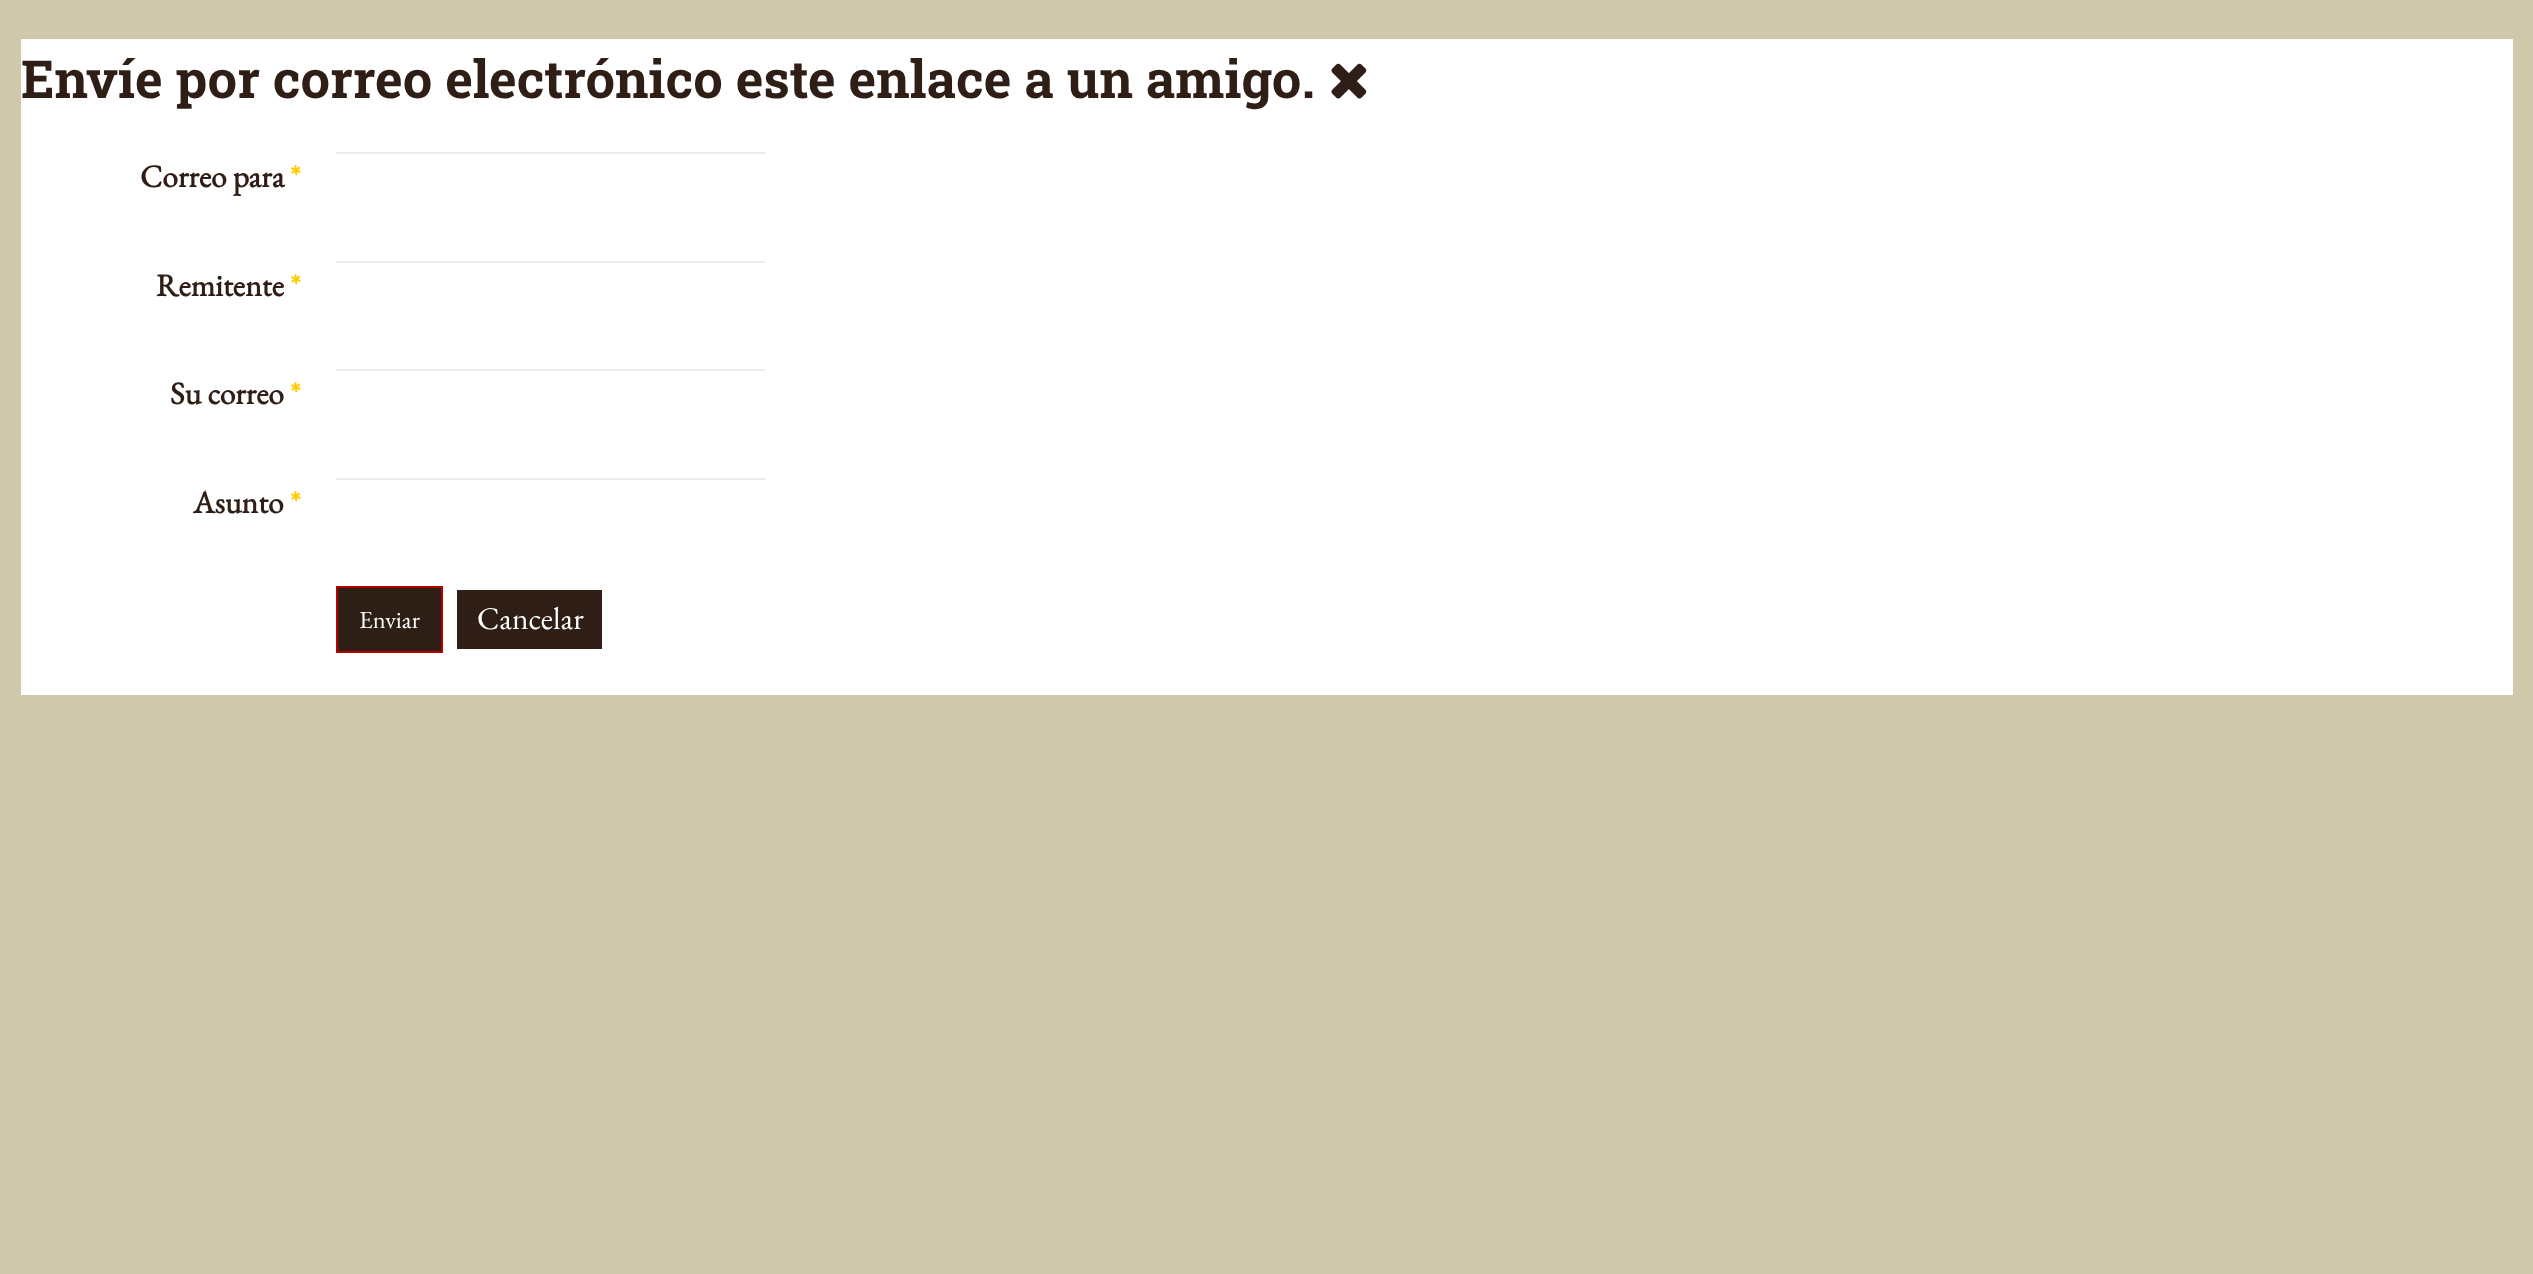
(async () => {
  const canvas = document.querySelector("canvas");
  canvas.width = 2533;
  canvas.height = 1274;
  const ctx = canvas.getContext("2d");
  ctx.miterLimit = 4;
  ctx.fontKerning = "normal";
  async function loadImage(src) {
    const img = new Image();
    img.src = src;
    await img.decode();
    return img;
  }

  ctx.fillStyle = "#cfc8ab";
  ctx.fillRect(0, 0, 2533, 1274);
  ctx.fillStyle = "#ffffff";
  ctx.fillRect(21, 39, 2492, 656);
  ctx.drawImage(await loadImage("img/1.png"), 1331, 63, 36, 36);
  for (const [x, y, w, h, color] of [
    [336, 152, 429, 2, "#ececec"],
    [336, 261, 429, 2, "#ececec"],
    [336, 369, 429, 2, "#ececec"],
    [336, 478, 429, 2, "#ececec"],
  ]) {
    ctx.fillStyle = color;
    ctx.fillRect(x, y, w, h);
  }
  ctx.fillStyle = "#2d1f16";
  ctx.beginPath();
  ctx.rect(337, 587, 105, 65);
  ctx.fill();
  ctx.strokeStyle = "#b30000";
  ctx.lineWidth = 2;
  ctx.stroke();
  ctx.fillStyle = "#2f1e16";
  ctx.fillRect(457, 590, 145, 59);
  ctx.font = "bold 52.5px Roboto Slab";
  ctx.fillText("Envíe por correo electrónico este enlace a un amigo.", 21, 98);
  ctx.font = "bold 31.5px EB Garamond";
  ctx.fillText("Correo para", 140, 187);
  ctx.fillStyle = "#ffcc00";
  ctx.fillText("*", 290, 187);
  ctx.fillStyle = "#2f1e16";
  ctx.fillText("Remitente", 156, 296);
  ctx.fillStyle = "#ffcc00";
  ctx.fillText("*", 290, 296);
  ctx.fillStyle = "#2f1e16";
  ctx.fillText("Su correo", 170, 404);
  ctx.fillStyle = "#ffcc00";
  ctx.fillText("*", 290, 404);
  ctx.fillStyle = "#2f1e16";
  ctx.fillText("Asunto", 193, 513);
  ctx.fillStyle = "#ffcc00";
  ctx.fillText("*", 290, 513);
  ctx.font = "24.5px EB Garamond";
  ctx.fillStyle = "#ffffff";
  ctx.fillText("Enviar", 359, 628);
  ctx.font = "31.5px EB Garamond";
  ctx.fillText("Cancelar", 477, 629);
})();
